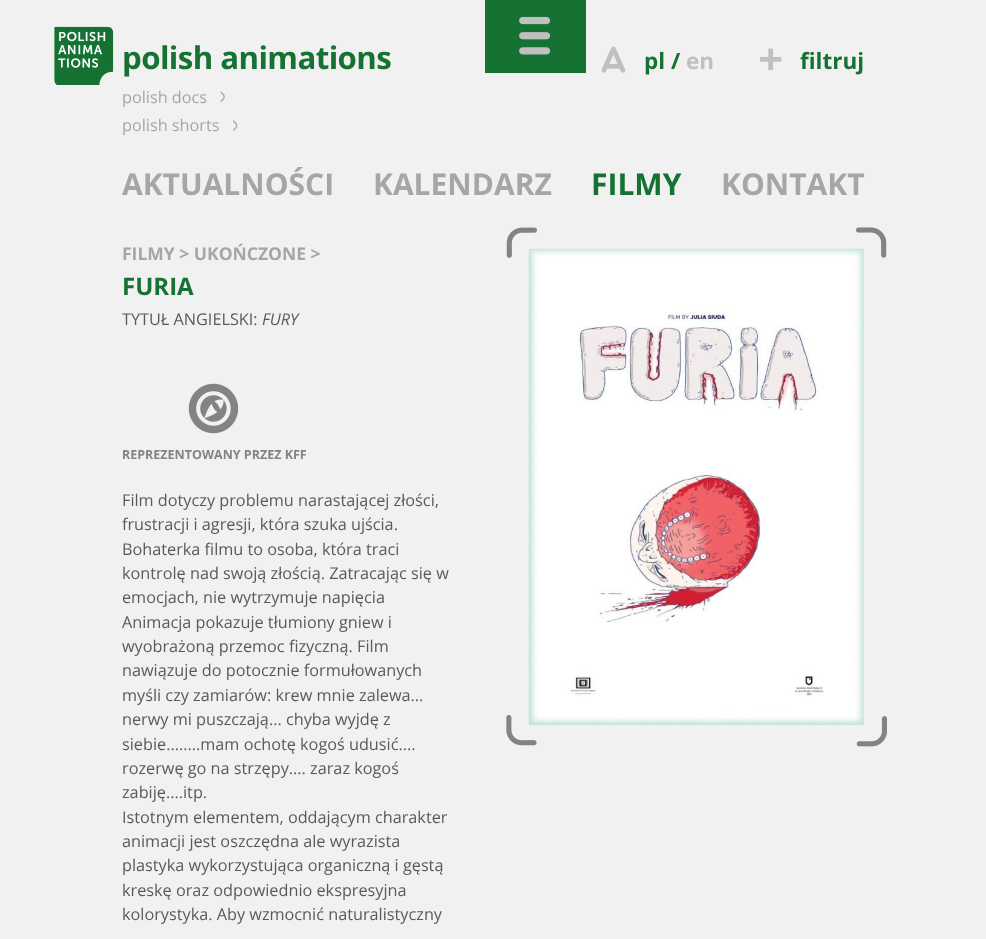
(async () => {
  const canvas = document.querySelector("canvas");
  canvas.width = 986;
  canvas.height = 939;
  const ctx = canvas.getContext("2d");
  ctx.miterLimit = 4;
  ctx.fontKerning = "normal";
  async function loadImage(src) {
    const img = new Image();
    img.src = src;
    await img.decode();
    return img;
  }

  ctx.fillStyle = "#f1f1f1";
  ctx.fillRect(0, 0, 986, 939);
  ctx.drawImage(await loadImage("img/1.png"), 54, 26, 60, 59);
  ctx.fillStyle = "#157232";
  ctx.fillRect(485, 0, 101, 73);
  ctx.drawImage(await loadImage("img/2.png"), 519, 16, 32, 39);
  ctx.drawImage(await loadImage("img/3.png"), 601, 46, 25, 27);
  ctx.drawImage(await loadImage("img/4.png"), 760, 48, 22, 23);
  ctx.drawImage(await loadImage("img/5.png"), 220, 91, 5, 11);
  ctx.drawImage(await loadImage("img/6.png"), 233, 120, 5, 11);
  ctx.drawImage(await loadImage("img/7.png"), 188, 383, 51, 51);
  ctx.drawImage(await loadImage("img/12.png"), 528, 248, 336, 477);
  ctx.drawImage(await loadImage("img/8.png"), 506, 227, 31, 31);
  ctx.drawImage(await loadImage("img/9.png"), 856, 227, 31, 31);
  ctx.drawImage(await loadImage("img/10.png"), 506, 715, 31, 31);
  ctx.drawImage(await loadImage("img/11.png"), 856, 716, 31, 31);
  ctx.letterSpacing = "-0.6px";
  ctx.font = "bold 31.25px Open Sans";
  ctx.fillText("polish animations", 122, 69);
  ctx.letterSpacing = "0px";
  ctx.font = "bold 22.5px Open Sans";
  ctx.fillText("pl /", 644, 69);
  ctx.fillStyle = "#c1c0c1";
  ctx.fillText("en", 686, 69);
  ctx.fillStyle = "#157232";
  ctx.fillText("filtruj", 800, 69);
  ctx.font = "16.25px Open Sans";
  ctx.fillStyle = "#a6a6a6";
  ctx.fillText("polish docs", 122, 103);
  ctx.fillText("polish shorts", 122, 131);
  ctx.font = "bold 30px Open Sans";
  ctx.fillText("AKTUALNOŚCI", 122, 195);
  ctx.fillText("KALENDARZ", 373, 195);
  ctx.fillStyle = "#157232";
  ctx.fillText("FILMY", 591, 195);
  ctx.fillStyle = "#a6a6a6";
  ctx.fillText("KONTAKT", 721, 195);
  ctx.font = "bold 17.5px Open Sans";
  ctx.fillText("FILMY > UKOŃCZONE >", 122, 260);
  ctx.font = "bold 24px Open Sans";
  ctx.fillStyle = "#157232";
  ctx.fillText("FURIA", 122, 295);
  ctx.font = "16.25px Open Sans";
  ctx.fillStyle = "#5a5a5a";
  ctx.fillText("TYTUŁ ANGIELSKI:", 122, 325);
  ctx.font = "italic 16.25px Open Sans";
  ctx.fillText("FURY", 262, 325);
  ctx.font = "bold 12.5px Open Sans";
  ctx.fillStyle = "#838383";
  ctx.fillText("REPREZENTOWANY PRZEZ KFF", 122, 459);
  ctx.font = "16.25px Open Sans";
  ctx.fillStyle = "#5a5a5a";
  for (const [text, x, y] of [
    ["Film dotyczy problemu narastającej złości,", 122, 506],
    ["frustracji i agresji, która szuka ujścia.", 122, 530],
    ["Bohaterka filmu to osoba, która traci", 122, 555],
    ["kontrolę nad swoją złością. Zatracając się w", 122, 579],
    ["emocjach, nie wytrzymuje napięcia", 122, 603],
    ["Animacja pokazuje tłumiony gniew i", 122, 628],
    ["wyobrażoną przemoc fizyczną. Film", 122, 652],
    ["nawiązuje do potocznie formułowanych", 122, 676],
    ["myśli czy zamiarów: krew mnie zalewa...", 122, 701],
    ["nerwy mi puszczają... chyba wyjdę z", 122, 725],
    ["siebie........mam ochotę kogoś udusić....", 122, 750],
    ["rozerwę go na strzępy.... zaraz kogoś", 122, 774],
    ["zabiję....itp.", 122, 798],
    ["Istotnym elementem, oddającym charakter", 122, 823],
    ["animacji jest oszczędna ale wyrazista", 122, 847],
    ["plastyka wykorzystująca organiczną i gęstą", 122, 871],
    ["kreskę oraz odpowiednio ekspresyjna", 122, 896],
    ["kolorystyka. Aby wzmocnić naturalistyczny", 122, 920],
  ]) {
    ctx.fillText(text, x, y);
  }
})();
